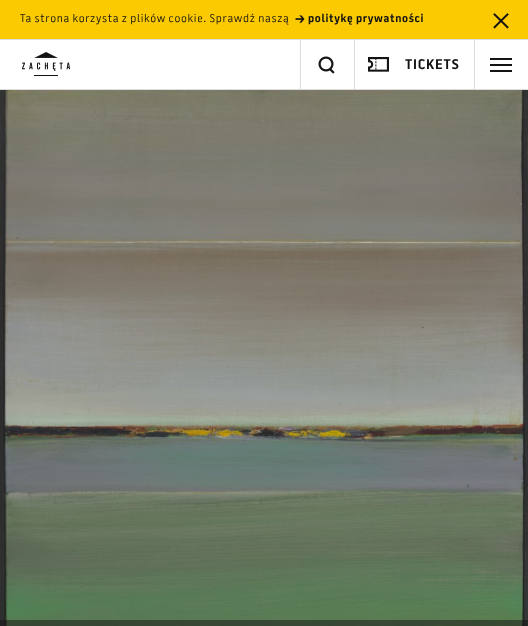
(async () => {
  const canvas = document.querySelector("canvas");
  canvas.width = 528;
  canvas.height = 626;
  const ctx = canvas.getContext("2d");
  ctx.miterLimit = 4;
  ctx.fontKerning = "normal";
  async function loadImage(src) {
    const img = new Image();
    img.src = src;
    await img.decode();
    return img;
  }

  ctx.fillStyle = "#ffffff";
  ctx.fillRect(0, 0, 528, 626);
  ctx.fillStyle = "#fcca00";
  ctx.fillRect(0, 0, 528, 39);
  ctx.fillStyle = "#dcdcdc";
  ctx.fillRect(0, 39, 528, 1);
  ctx.drawImage(await loadImage("img/1.png"), 295, 15, 10, 8);
  ctx.drawImage(await loadImage("img/2.png"), 493, 13, 16, 16);
  ctx.drawImage(await loadImage("img/3.png"), 22, 52, 48, 24);
  ctx.fillRect(300, 40, 1, 50);
  ctx.drawImage(await loadImage("img/4.png"), 318, 56, 17, 18);
  ctx.fillRect(354, 40, 1, 50);
  ctx.drawImage(await loadImage("img/5.png"), 368, 57, 21, 15);
  for (const [x, y, w, h, color] of [
    [474, 40, 1, 50, "#dcdcdc"],
    [490, 58, 22, 2, "#141414"],
    [490, 64, 22, 2, "#141414"],
    [490, 70, 22, 2, "#141414"],
    [0, 89, 528, 1, "#dcdcdc"],
  ]) {
    ctx.fillStyle = color;
    ctx.fillRect(x, y, w, h);
  }
  ctx.drawImage(await loadImage("img/6.png"), 0, 90, 528, 536);
  ctx.fillStyle = "rgba(19, 19, 19, 0.5)";
  ctx.fillRect(0, 620, 528, 6);
  ctx.letterSpacing = "0.65px";
  ctx.font = "11.1px 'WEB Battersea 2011'";
  ctx.fillStyle = "#131313";
  ctx.fillText("Ta strona korzysta z plików cookie. Sprawdź naszą", 20, 22);
  ctx.font = "bold 11.1px 'WEB Battersea 2011'";
  ctx.fillText("politykę prywatności", 308, 22);
  ctx.letterSpacing = "0.75px";
  ctx.font = "bold 14px 'WEB Battersea 2011'";
  ctx.fillText("TICKETS", 405, 69);
})();
